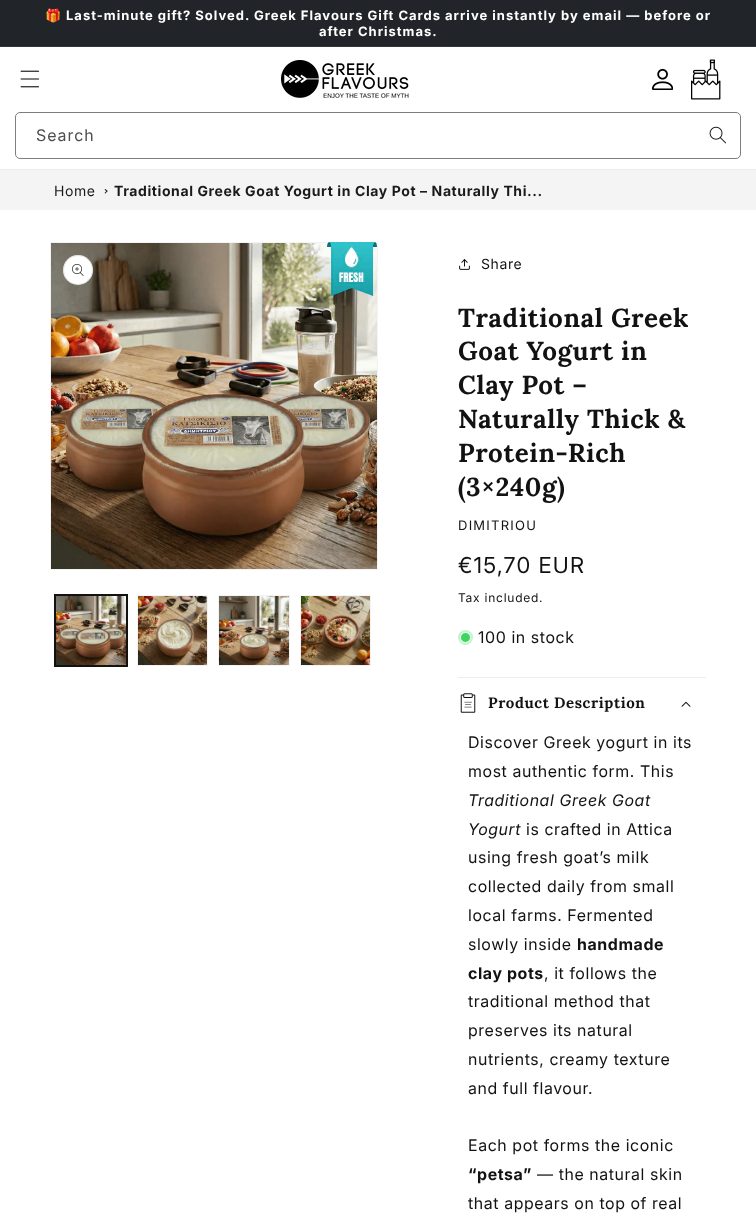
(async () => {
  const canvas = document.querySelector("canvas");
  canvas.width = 756;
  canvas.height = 1215;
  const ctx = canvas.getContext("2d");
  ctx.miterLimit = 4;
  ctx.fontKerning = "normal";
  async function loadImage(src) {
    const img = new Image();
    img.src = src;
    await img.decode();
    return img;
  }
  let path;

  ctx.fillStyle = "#ffffff";
  ctx.fillRect(0, 0, 756, 1215);
  for (const [x, y, w, h, color] of [
    [0, 0, 756, 46, "#212529"],
    [0, 46, 756, 1, "#33363a"],
    [0, 169, 756, 1, "#ececec"],
  ]) {
    ctx.fillStyle = color;
    ctx.fillRect(x, y, w, h);
  }
  ctx.drawImage(await loadImage("img/1.png"), 20, 70, 20, 18);
  ctx.drawImage(await loadImage("img/2.png"), 281, 60, 128, 38);
  ctx.drawImage(await loadImage("img/3.png"), 651, 68, 22, 22);
  ctx.drawImage(await loadImage("img/4.png"), 691, 59, 30, 41);
  ctx.drawImage(await loadImage("img/5.png"), 709, 126, 17, 18);
  ctx.beginPath();
  ctx.roundRect(15.5, 112.5, 725, 46, 4.5);
  ctx.strokeStyle = "#7d7d7d";
  ctx.stroke();
  ctx.fillStyle = "#f4f4f4";
  ctx.fillRect(0, 170, 756, 40);
  ctx.fillStyle = "#1a1a1a";
  path = new Path2D("M105.5 189L107.5 191L107 192L104.5 189.5Z");
  ctx.fill(path);
  path = new Path2D("M107 190.5L107.5 191L105.5 193.5L104.5 193Z");
  ctx.fill(path);
  ctx.strokeStyle = "#f3f3f3";
  ctx.strokeRect(50.5, 242.5, 327, 327);
  ctx.drawImage(await loadImage("img/6.png"), 51, 243, 326, 326);
  ctx.fillStyle = "#ffffff";
  ctx.beginPath();
  ctx.arc(78, 270, 15, 0, Math.PI * 2);
  ctx.fill();
  ctx.beginPath();
  ctx.arc(78, 270, 14.5, 0, Math.PI * 2);
  ctx.strokeStyle = "rgba(18, 18, 18, 0.1)";
  ctx.stroke();
  ctx.drawImage(await loadImage("img/7.png"), 72, 264, 12, 12);
  ctx.strokeStyle = "#121212";
  ctx.strokeRect(54.5, 594.5, 73, 72);
  ctx.strokeRect(55.5, 595.5, 71, 70);
  ctx.drawImage(await loadImage("img/8.png"), 56, 596, 70, 69);
  ctx.strokeStyle = "#f3f3f3";
  ctx.strokeRect(137.5, 595.5, 70, 70);
  ctx.drawImage(await loadImage("img/9.png"), 138, 596, 69, 69);
  ctx.strokeRect(218.5, 595.5, 71, 70);
  ctx.drawImage(await loadImage("img/10.png"), 219, 596, 70, 69);
  ctx.strokeRect(300.5, 595.5, 70, 70);
  ctx.drawImage(await loadImage("img/11.png"), 301, 596, 69, 69);
  ctx.drawImage(await loadImage("img/12.png"), 327, 242, 50, 54);
  ctx.drawImage(await loadImage("img/13.png"), 459, 259, 11, 11);
  ctx.fillStyle = "#c5f3cf";
  ctx.beginPath();
  ctx.arc(465.5, 637.5, 7.5, 0, Math.PI * 2);
  ctx.fill();
  ctx.fillStyle = "#3ed660";
  ctx.beginPath();
  ctx.arc(465.5, 637.5, 5, 0, Math.PI * 2);
  ctx.fill();
  ctx.strokeStyle = "#ffffff";
  ctx.stroke();
  ctx.fillStyle = "#ececec";
  ctx.fillRect(458, 677, 248, 1);
  ctx.drawImage(await loadImage("img/14.png"), 460, 693, 16, 20);
  ctx.drawImage(await loadImage("img/15.png"), 681, 701, 10, 6);
  ctx.letterSpacing = "1px";
  ctx.font = "bold 13px Noto Color Emoji";
  ctx.fillStyle = "#ffffff";
  ctx.fillText("🎁", 45, 20);
  ctx.font = "bold 13px Inter";
  ctx.fillText("Last-minute gift? Solved. Greek Flavours Gift Cards arrive instantly by email — before or", 66, 20);
  ctx.fillText("after Christmas.", 319, 36);
  ctx.font = "16px 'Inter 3'";
  ctx.fillStyle = "#4d4d4d";
  ctx.fillText("Search", 36, 141);
  ctx.letterSpacing = "0.6px";
  ctx.font = "14px Inter";
  ctx.fillStyle = "#1a1a1a";
  ctx.fillText("Home", 54, 196);
  ctx.font = "bold 14px Inter";
  ctx.fillText("Traditional Greek Goat Yogurt in Clay Pot – Naturally Thi...", 114, 196);
  ctx.font = "14px Inter";
  ctx.fillStyle = "#121212";
  ctx.fillText("Share", 481, 269);
  ctx.font = "bold 26px Lora";
  for (const [text, x, y] of [
    ["Traditional Greek", 458, 327],
    ["Goat Yogurt in", 458, 360],
    ["Clay Pot –", 458, 394],
    ["Naturally Thick &", 458, 428],
    ["Protein-Rich", 458, 462],
    ["(3×240g)", 458, 496],
  ]) {
    ctx.fillText(text, x, y);
  }
  ctx.letterSpacing = "1.25px";
  ctx.font = "13px Inter";
  ctx.fillText("DIMITRIOU", 458, 530);
  ctx.font = "22px 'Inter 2'";
  ctx.fillText("€15,70 EUR", 458, 573);
  ctx.letterSpacing = "0.75px";
  ctx.font = "12px Inter";
  ctx.fillText("Tax included.", 458, 602);
  ctx.letterSpacing = "0.6px";
  ctx.font = "16px 'Inter 3'";
  ctx.fillText("100 in stock", 478, 643);
  ctx.font = "bold 15px Lora";
  ctx.fillText("Product Description", 488, 708);
  ctx.font = "16px 'Inter 3'";
  ctx.fillText("Discover Greek yogurt in its", 468, 748);
  ctx.fillText("most authentic form. This", 468, 777);
  ctx.font = "italic 16px Inter";
  ctx.fillText("Traditional Greek Goat", 468, 806);
  ctx.fillText("Yogurt", 468, 835);
  ctx.font = "16px 'Inter 3'";
  for (const [text, x, y] of [
    ["is crafted in Attica", 526, 835],
    ["using fresh goat’s milk", 468, 863],
    ["collected daily from small", 468, 892],
    ["local farms. Fermented", 468, 921],
    ["slowly inside", 468, 950],
  ]) {
    ctx.fillText(text, x, y);
  }
  ctx.font = "bold 16px 'Inter 2'";
  ctx.fillText("handmade", 577, 950);
  ctx.fillText("clay pots", 468, 979);
  ctx.font = "16px 'Inter 3'";
  for (const [text, x, y] of [
    [", it follows the", 544, 979],
    ["traditional method that", 468, 1007],
    ["preserves its natural", 468, 1036],
    ["nutrients, creamy texture", 468, 1065],
    ["and full flavour.", 468, 1094],
    ["Each pot forms the iconic", 468, 1151],
  ]) {
    ctx.fillText(text, x, y);
  }
  ctx.font = "bold 16px 'Inter 2'";
  ctx.fillText("“petsa”", 468, 1180);
  ctx.font = "16px 'Inter 3'";
  ctx.fillText("— the natural skin", 537, 1180);
  ctx.fillText("that appears on top of real", 468, 1209);
})();
